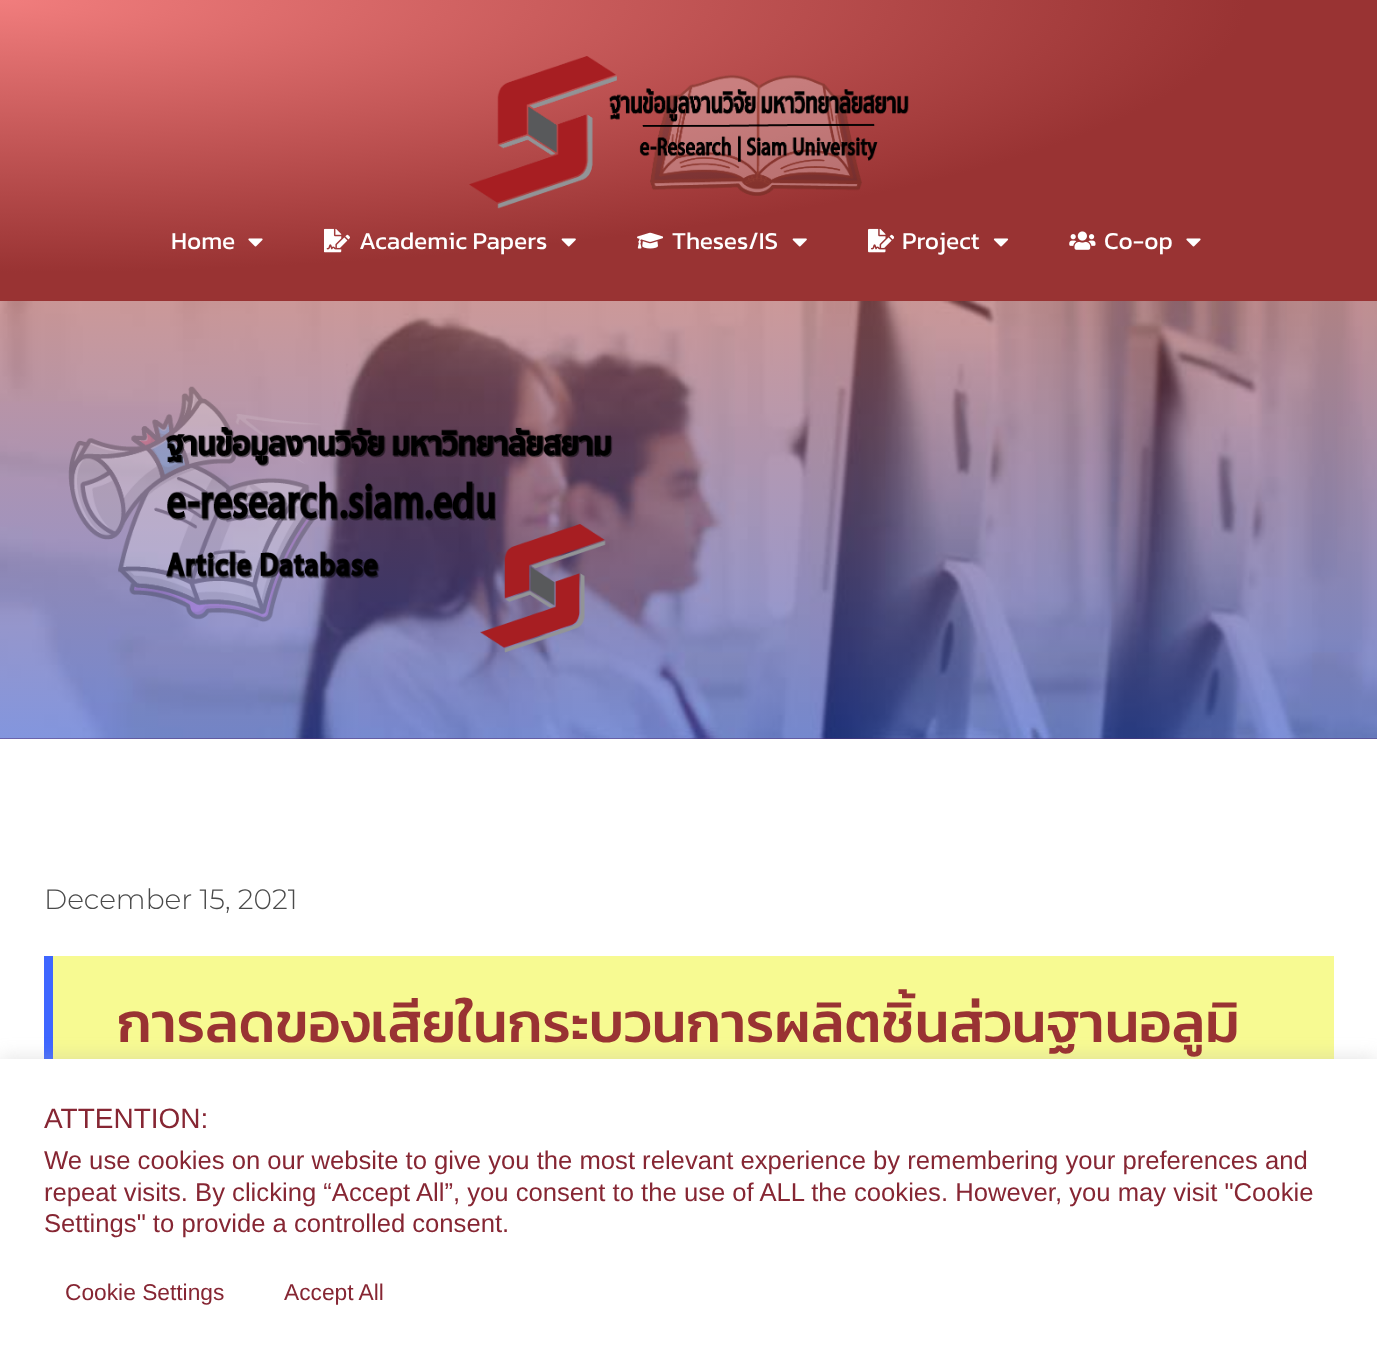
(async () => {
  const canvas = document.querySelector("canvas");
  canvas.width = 1377;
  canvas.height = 1372;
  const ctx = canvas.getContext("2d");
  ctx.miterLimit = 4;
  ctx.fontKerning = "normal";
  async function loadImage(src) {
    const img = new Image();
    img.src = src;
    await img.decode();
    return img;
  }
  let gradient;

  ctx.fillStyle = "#ffffff";
  ctx.fillRect(0, 0, 1377, 1372);
  gradient = ctx.createRadialGradient(0, 0, 0, 0, 0, 1948);
  gradient.addColorStop(0, "#f17d7d");
  gradient.addColorStop(0.64, "#993333");
  ctx.fillStyle = gradient;
  ctx.beginPath();
  ctx.rect(0, 0, 1377, 301);
  ctx.save();
  ctx.clip();
  ctx.scale(1, 426 / 1948);
  ctx.fillRect(0, 0, 1377, 6274);
  ctx.restore();
  ctx.drawImage(await loadImage("img/1.png"), 469, 56, 440, 153);
  ctx.drawImage(await loadImage("img/2.png"), 248, 238, 15, 9);
  ctx.drawImage(await loadImage("img/3.png"), 324, 228, 26, 25);
  ctx.drawImage(await loadImage("img/4.png"), 561, 238, 15, 9);
  ctx.drawImage(await loadImage("img/5.png"), 637, 232, 26, 17);
  ctx.drawImage(await loadImage("img/6.png"), 792, 238, 15, 9);
  ctx.drawImage(await loadImage("img/7.png"), 868, 228, 26, 25);
  ctx.drawImage(await loadImage("img/8.png"), 993, 238, 16, 9);
  ctx.drawImage(await loadImage("img/9.png"), 1069, 231, 27, 19);
  ctx.drawImage(await loadImage("img/10.png"), 1186, 238, 15, 9);
  ctx.fillStyle = "#993333";
  ctx.fillRect(0, 738, 1377, 1);
  ctx.drawImage(await loadImage("img/11.png"), 0, 301, 1377, 438);
  gradient = ctx.createLinearGradient(689, 301, 689, 739);
  gradient.addColorStop(0, "rgba(153, 51, 51, 0.5)");
  gradient.addColorStop(1, "rgba(10, 48, 192, 0.5)");
  ctx.fillStyle = gradient;
  ctx.fillRect(0, 301, 1377, 438);
  ctx.drawImage(await loadImage("img/12.png"), 68, 386, 545, 267);
  ctx.fillStyle = "#f7fa92";
  ctx.fillRect(53, 956, 1281, 103);
  ctx.fillStyle = "#3e66ff";
  ctx.fillRect(44, 956, 9, 103);
  ctx.fillStyle = "rgba(172, 171, 171, 0.3)";
  ctx.filter = "blur(9px)";
  ctx.beginPath();
  ctx.rect(0, 1057, 1377, 313);
  ctx.fill();
  ctx.filter = "none";
  ctx.fillStyle = "#ffffff";
  ctx.fillRect(0, 1059, 1377, 313);
  ctx.font = "24.5px Kanit";
  for (const [text, x, y] of [
    ["Home", 171, 249],
    ["Academic Papers", 359, 249],
    ["Theses/IS", 672, 249],
    ["Project", 902, 249],
    ["Co-op", 1104, 249],
  ]) {
    ctx.fillText(text, x, y);
  }
  ctx.font = "300 28px Montserrat";
  ctx.fillStyle = "#4a4a4a";
  ctx.fillText("December 15, 2021", 44, 909);
  ctx.font = "500 56px Kanit";
  ctx.fillStyle = "#993333";
  ctx.fillText("การลดของเสียในกระบวนการผลิตชิ้นส่วนฐานอลูมิ", 117, 1042);
  ctx.font = "28px Liberation Sans";
  ctx.fillStyle = "#862633";
  ctx.fillText("ATTENTION:", 44, 1128);
  ctx.font = "25.65px Liberation Sans";
  for (const [text, x, y] of [
    ["We use cookies on our website to give you the most relevant experience by remembering your preferences and", 44, 1169],
    ["repeat visits. By clicking “Accept All”, you consent to the use of ALL the cookies. However, you may visit \"Cookie", 44, 1201],
    ["Settings\" to provide a controlled consent.", 44, 1232],
  ]) {
    ctx.fillText(text, x, y);
  }
  ctx.font = "22.75px Liberation Sans";
  ctx.fillText("Cookie Settings", 65, 1300);
  ctx.fillText("Accept All", 284, 1300);
})();
